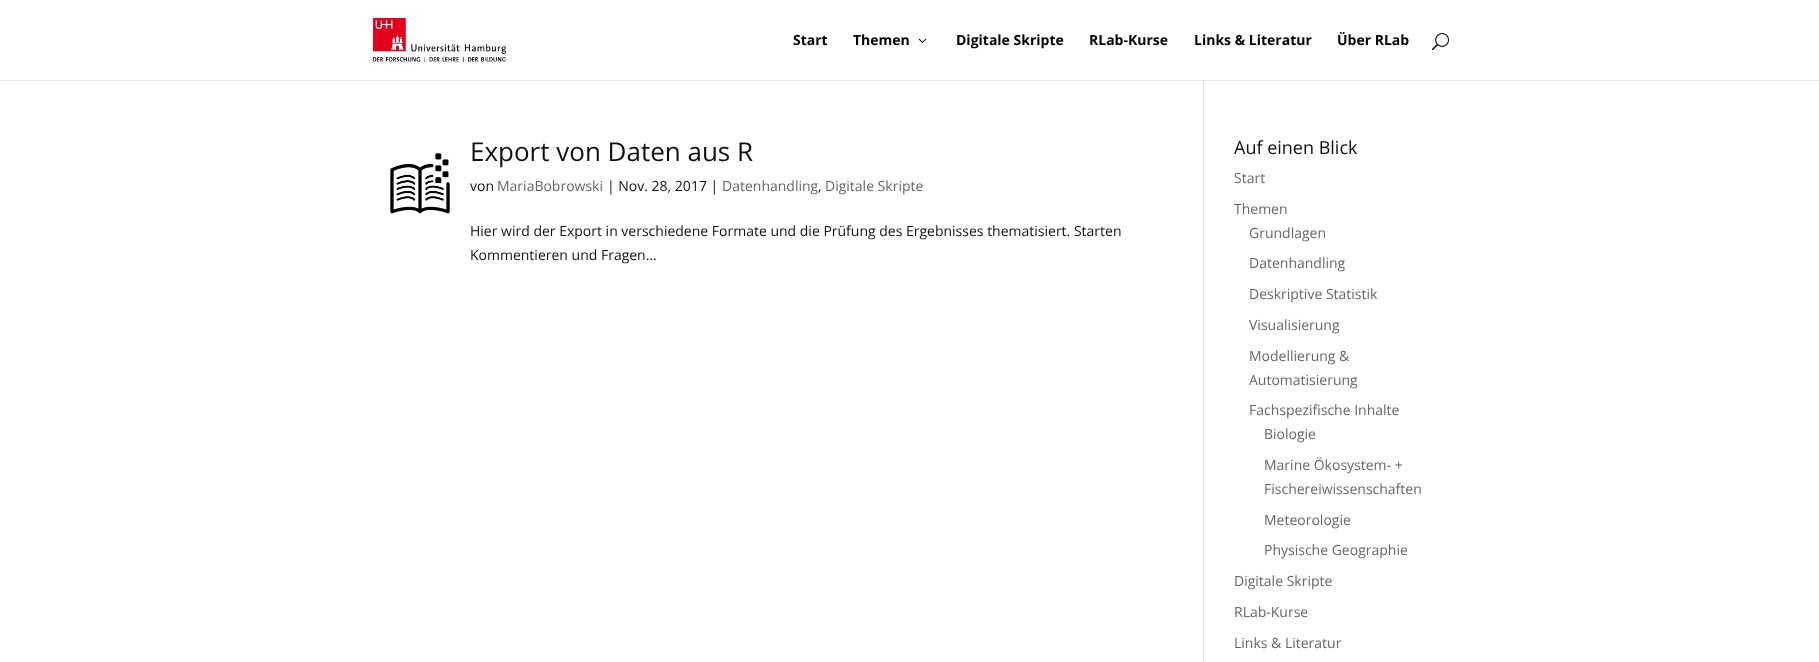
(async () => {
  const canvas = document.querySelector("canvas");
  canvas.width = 1819;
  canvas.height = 662;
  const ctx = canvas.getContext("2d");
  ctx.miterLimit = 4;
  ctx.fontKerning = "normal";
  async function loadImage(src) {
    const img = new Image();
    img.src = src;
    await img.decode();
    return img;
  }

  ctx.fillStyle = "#ffffff";
  ctx.fillRect(0, 0, 1819, 662);
  ctx.fillStyle = "#e6e6e6";
  ctx.fillRect(0, 80, 1819, 1);
  ctx.drawImage(await loadImage("img/1.png"), 373, 18, 133, 44);
  ctx.drawImage(await loadImage("img/2.png"), 918, 38, 9, 5);
  ctx.drawImage(await loadImage("img/3.png"), 1432, 33, 17, 18);
  ctx.fillStyle = "#e2e2e2";
  ctx.fillRect(1203, 80, 1, 582);
  ctx.fillStyle = "#cbcbcb";
  ctx.fillRect(1203, 80, 1, 1);
  ctx.drawImage(await loadImage("img/4.png"), 390, 153, 60, 61);
  ctx.font = "bold 14px Open Sans";
  ctx.fillStyle = "#020202";
  for (const [text, x, y] of [
    ["Start", 793, 45],
    ["Themen", 853, 45],
    ["Digitale Skripte", 956, 45],
    ["RLab-Kurse", 1089, 45],
    ["Links & Literatur", 1194, 45],
    ["Über RLab", 1337, 45],
  ]) {
    ctx.fillText(text, x, y);
  }
  ctx.font = "26px Open Sans";
  ctx.fillStyle = "#101010";
  ctx.fillText("Export von Daten aus R", 470, 161);
  ctx.font = "14px Open Sans";
  ctx.fillText("von", 470, 191);
  ctx.fillStyle = "#666666";
  ctx.fillText("MariaBobrowski", 497, 191);
  ctx.fillStyle = "#101010";
  ctx.fillText("| Nov. 28, 2017 |", 607, 191);
  ctx.fillStyle = "#666666";
  ctx.fillText("Datenhandling", 722, 191);
  ctx.fillStyle = "#101010";
  ctx.fillText(",", 818, 191);
  ctx.fillStyle = "#666666";
  ctx.fillText("Digitale Skripte", 825, 191);
  ctx.fillStyle = "#101010";
  ctx.fillText("Hier wird der Export in verschiedene Formate und die Prüfung des Ergebnisses thematisiert. Starten", 470, 236);
  ctx.fillText("Kommentieren und Fragen...", 470, 260);
  ctx.font = "18px Open Sans";
  ctx.fillText("Auf einen Blick", 1234, 154);
  ctx.font = "14px Open Sans";
  ctx.fillStyle = "#666666";
  for (const [text, x, y] of [
    ["Start", 1234, 183],
    ["Themen", 1234, 214],
    ["Grundlagen", 1249, 238],
    ["Datenhandling", 1249, 268],
    ["Deskriptive Statistik", 1249, 299],
    ["Visualisierung", 1249, 330],
    ["Modellierung &", 1249, 361],
    ["Automatisierung", 1249, 385],
    ["Fachspezifische Inhalte", 1249, 415],
    ["Biologie", 1264, 439],
    ["Marine Ökosystem- +", 1264, 470],
    ["Fischereiwissenschaften", 1264, 494],
    ["Meteorologie", 1264, 525],
    ["Physische Geographie", 1264, 555],
    ["Digitale Skripte", 1234, 586],
    ["RLab-Kurse", 1234, 617],
    ["Links & Literatur", 1234, 648],
  ]) {
    ctx.fillText(text, x, y);
  }
})();
